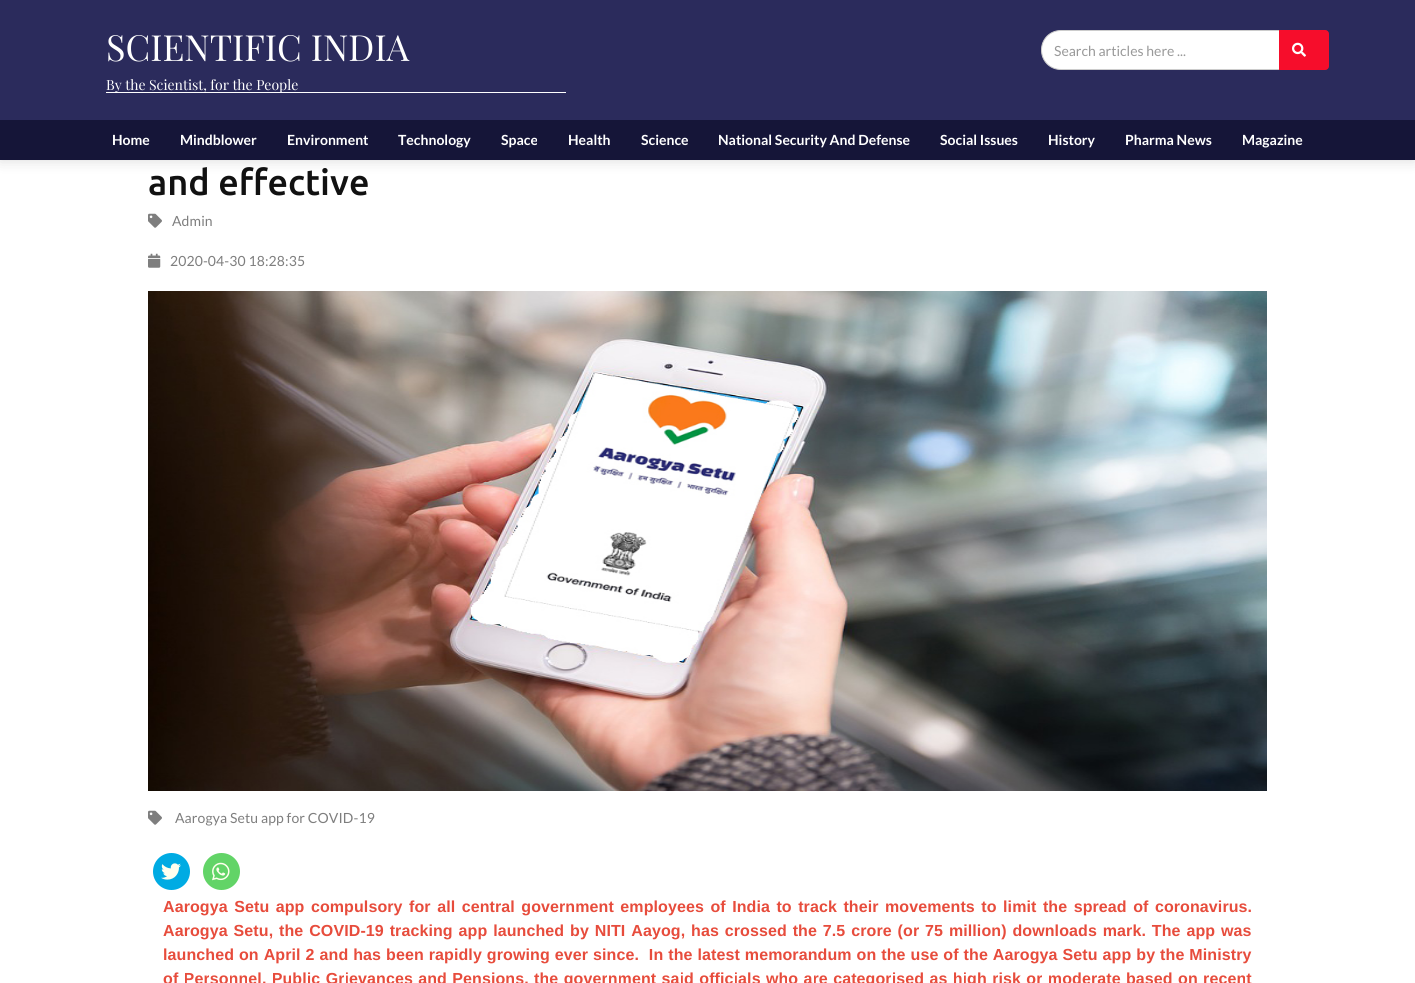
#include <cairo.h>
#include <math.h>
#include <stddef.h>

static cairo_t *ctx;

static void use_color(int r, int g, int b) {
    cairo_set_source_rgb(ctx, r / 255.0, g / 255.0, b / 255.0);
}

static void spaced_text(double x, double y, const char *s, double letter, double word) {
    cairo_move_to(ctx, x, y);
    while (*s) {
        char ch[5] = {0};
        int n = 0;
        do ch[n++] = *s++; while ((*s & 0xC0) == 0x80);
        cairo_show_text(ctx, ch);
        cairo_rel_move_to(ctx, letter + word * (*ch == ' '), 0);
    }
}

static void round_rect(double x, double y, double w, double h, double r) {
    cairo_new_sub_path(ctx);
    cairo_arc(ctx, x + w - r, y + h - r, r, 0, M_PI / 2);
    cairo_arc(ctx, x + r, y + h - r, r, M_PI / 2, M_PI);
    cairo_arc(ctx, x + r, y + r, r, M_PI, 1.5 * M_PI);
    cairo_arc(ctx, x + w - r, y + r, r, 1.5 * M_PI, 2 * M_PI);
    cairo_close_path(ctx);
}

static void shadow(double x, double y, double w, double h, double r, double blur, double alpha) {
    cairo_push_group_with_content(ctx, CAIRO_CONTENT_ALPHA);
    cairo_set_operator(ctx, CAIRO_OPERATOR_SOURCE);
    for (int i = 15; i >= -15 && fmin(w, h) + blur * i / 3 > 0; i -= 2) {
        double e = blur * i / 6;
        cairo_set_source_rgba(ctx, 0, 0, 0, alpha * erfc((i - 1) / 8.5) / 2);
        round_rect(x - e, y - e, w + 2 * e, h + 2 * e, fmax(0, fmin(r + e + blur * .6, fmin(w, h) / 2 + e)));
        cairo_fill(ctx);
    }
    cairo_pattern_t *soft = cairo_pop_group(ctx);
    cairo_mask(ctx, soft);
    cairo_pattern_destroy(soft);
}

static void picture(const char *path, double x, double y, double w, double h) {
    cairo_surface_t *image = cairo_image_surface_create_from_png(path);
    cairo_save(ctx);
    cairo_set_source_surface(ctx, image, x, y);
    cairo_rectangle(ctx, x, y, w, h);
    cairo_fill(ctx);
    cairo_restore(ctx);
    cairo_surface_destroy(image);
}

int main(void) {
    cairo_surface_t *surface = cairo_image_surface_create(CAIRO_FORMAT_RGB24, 1415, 983);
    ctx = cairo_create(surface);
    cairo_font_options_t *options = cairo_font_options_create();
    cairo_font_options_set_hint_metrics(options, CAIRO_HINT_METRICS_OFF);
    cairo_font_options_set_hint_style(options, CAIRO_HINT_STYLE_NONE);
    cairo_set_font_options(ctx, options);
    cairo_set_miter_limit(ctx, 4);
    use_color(255, 255, 255);
    cairo_paint(ctx);
    use_color(0, 0, 0);
    shadow(0, 0, 1415, 160, 0, 7.5, 0.15);
    use_color(21, 21, 56);
    cairo_rectangle(ctx, 0, 120, 1415, 40);
    cairo_fill(ctx);
    use_color(43, 43, 92);
    cairo_rectangle(ctx, 0, 0, 1415, 120);
    cairo_fill(ctx);
    cairo_select_font_face(ctx, "Playfair Display", CAIRO_FONT_SLANT_NORMAL, CAIRO_FONT_WEIGHT_NORMAL);
    cairo_set_font_size(ctx, 36);
    use_color(255, 255, 255);
    cairo_move_to(ctx, 106, 61);
    cairo_show_text(ctx, "SCIENTIFIC INDIA");
    cairo_rectangle(ctx, 106, 92, 460, 1);
    cairo_fill(ctx);
    cairo_set_font_size(ctx, 14);
    cairo_move_to(ctx, 106, 90);
    cairo_show_text(ctx, "By the Scientist, for the People");
    cairo_new_path(ctx);
    cairo_move_to(ctx, 1061, 30.5);
    cairo_line_to(ctx, 1279.5, 30.5);
    cairo_line_to(ctx, 1279.5, 69.5);
    cairo_line_to(ctx, 1061, 69.5);
    cairo_curve_to(ctx, 1050, 69.5, 1041.5, 61, 1041.5, 50);
    cairo_curve_to(ctx, 1041.5, 39, 1050, 30.5, 1061, 30.5);
    cairo_close_path(ctx);
    cairo_fill_preserve(ctx);
    use_color(204, 204, 204);
    cairo_set_line_width(ctx, 1);
    cairo_stroke(ctx);
    cairo_select_font_face(ctx, "Lato", CAIRO_FONT_SLANT_NORMAL, CAIRO_FONT_WEIGHT_NORMAL);
    use_color(153, 153, 153);
    cairo_move_to(ctx, 1054, 56);
    cairo_show_text(ctx, "Search articles here ...");
    use_color(246, 13, 43);
    cairo_new_path(ctx);
    cairo_move_to(ctx, 1279.5, 30.5);
    cairo_line_to(ctx, 1325, 30.5);
    cairo_curve_to(ctx, 1327, 30.5, 1328.5, 32, 1328.5, 34);
    cairo_line_to(ctx, 1328.5, 66);
    cairo_curve_to(ctx, 1328.5, 68, 1327, 69.5, 1325, 69.5);
    cairo_line_to(ctx, 1279.5, 69.5);
    cairo_close_path(ctx);
    cairo_fill_preserve(ctx);
    cairo_stroke(ctx);
    picture("img1.png", 1292, 42, 14, 15);
    cairo_select_font_face(ctx, "Lato", CAIRO_FONT_SLANT_NORMAL, CAIRO_FONT_WEIGHT_BOLD);
    use_color(255, 255, 255);
    cairo_move_to(ctx, 112, 145);
    cairo_show_text(ctx, "Home");
    cairo_move_to(ctx, 180, 145);
    cairo_show_text(ctx, "Mindblower");
    cairo_move_to(ctx, 287, 145);
    cairo_show_text(ctx, "Environment");
    cairo_move_to(ctx, 398, 145);
    cairo_show_text(ctx, "Technology");
    cairo_move_to(ctx, 501, 145);
    cairo_show_text(ctx, "Space");
    cairo_move_to(ctx, 568, 145);
    cairo_show_text(ctx, "Health");
    cairo_move_to(ctx, 641, 145);
    cairo_show_text(ctx, "Science");
    cairo_move_to(ctx, 718, 145);
    cairo_show_text(ctx, "National Security And Defense");
    cairo_move_to(ctx, 940, 145);
    cairo_show_text(ctx, "Social Issues");
    cairo_move_to(ctx, 1048, 145);
    cairo_show_text(ctx, "History");
    cairo_move_to(ctx, 1125, 145);
    cairo_show_text(ctx, "Pharma News");
    cairo_move_to(ctx, 1242, 145);
    cairo_show_text(ctx, "Magazine");
    cairo_select_font_face(ctx, "Ubuntu Medium", CAIRO_FONT_SLANT_NORMAL, CAIRO_FONT_WEIGHT_NORMAL);
    cairo_set_font_size(ctx, 36);
    use_color(17, 17, 17);
    cairo_move_to(ctx, 148, 195);
    cairo_show_text(ctx, "and effective");
    picture("img2.png", 148, 213, 14, 15);
    cairo_select_font_face(ctx, "Lato", CAIRO_FONT_SLANT_NORMAL, CAIRO_FONT_WEIGHT_NORMAL);
    cairo_set_font_size(ctx, 14);
    use_color(126, 126, 126);
    spaced_text(172, 226, "Admin", 0.1, 0);
    picture("img3.png", 148, 253, 13, 15);
    spaced_text(170, 266, "2020-04-30 18:28:35", 0.1, 0);
    picture("img4.png", 148, 291, 1119, 500);
    picture("img2.png", 148, 810, 14, 15);
    spaced_text(175, 823, "Aarogya Setu app for COVID-19", 0.1, 0);
    use_color(0, 171, 227);
    cairo_new_path(ctx);
    cairo_arc(ctx, 171.5, 871.5, 18.5, 0, 2 * M_PI);
    cairo_fill(ctx);
    picture("img5.png", 161, 863, 20, 17);
    use_color(98, 212, 103);
    cairo_arc(ctx, 221.5, 871.5, 18.5, 0, 2 * M_PI);
    cairo_fill(ctx);
    picture("img6.png", 212, 862, 18, 19);
    cairo_select_font_face(ctx, "Liberation Sans", CAIRO_FONT_SLANT_NORMAL, CAIRO_FONT_WEIGHT_BOLD);
    cairo_set_font_size(ctx, 16);
    use_color(231, 76, 60);
    spaced_text(163, 912, "Aarogya Setu app compulsory for all central government employees of India to track their movements to limit the spread of coronavirus.", 0.1, 1.9);
    spaced_text(163, 936, "Aarogya Setu, the COVID-19 tracking app launched by NITI Aayog, has crossed the 7.5 crore (or 75 million) downloads mark. The app was", 0.1, 1.3);
    spaced_text(163, 960, "launched on April 2 and has been rapidly growing ever since.  In the latest memorandum on the use of the Aarogya Setu app by the Ministry", 0.1, 0.4);
    spaced_text(163, 984, "of Personnel, Public Grievances and Pensions, the government said officials who are categorised as high risk or moderate based on recent", 0.1, 0.75);
    cairo_surface_write_to_png(surface, "result.png");
    cairo_font_options_destroy(options);
    cairo_destroy(ctx);
    cairo_surface_destroy(surface);
    return 0;
}
